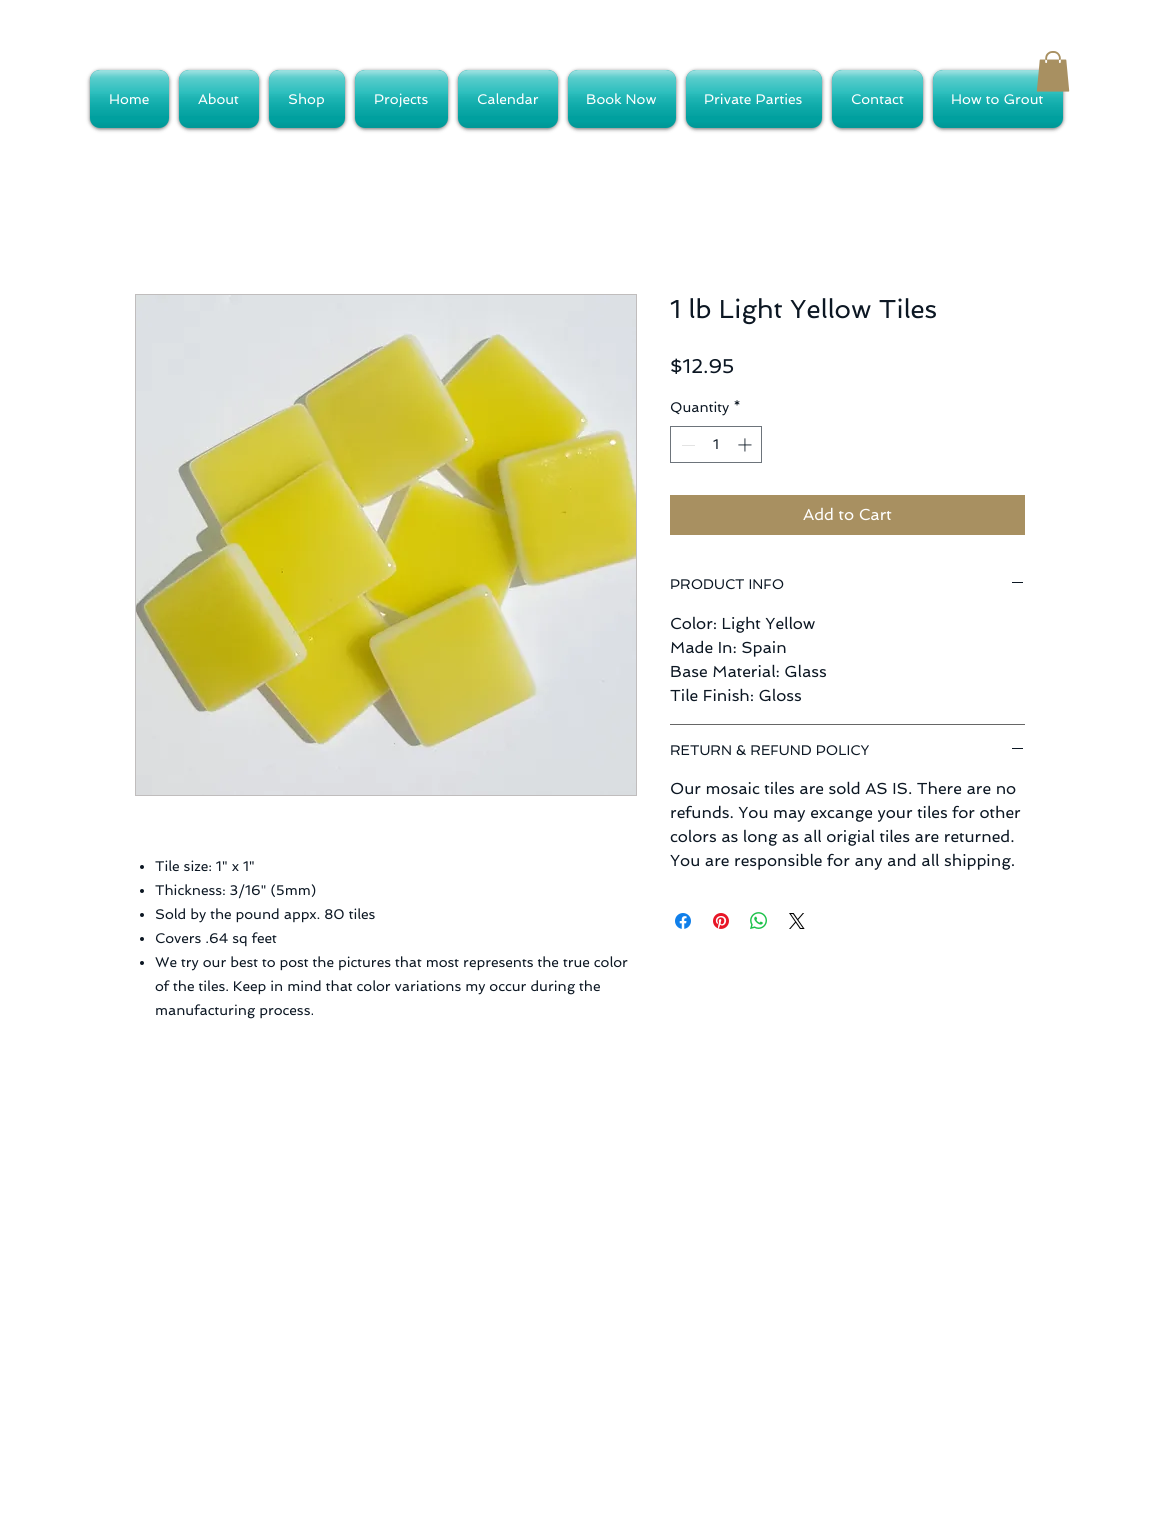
#include <cairo.h>
#include <math.h>
#include <stddef.h>

static cairo_t *ctx;

static void use_color(int r, int g, int b) {
    cairo_set_source_rgb(ctx, r / 255.0, g / 255.0, b / 255.0);
}

static void round_rect(double x, double y, double w, double h, double r) {
    cairo_new_sub_path(ctx);
    cairo_arc(ctx, x + w - r, y + h - r, r, 0, M_PI / 2);
    cairo_arc(ctx, x + r, y + h - r, r, M_PI / 2, M_PI);
    cairo_arc(ctx, x + r, y + r, r, M_PI, 1.5 * M_PI);
    cairo_arc(ctx, x + w - r, y + r, r, 1.5 * M_PI, 2 * M_PI);
    cairo_close_path(ctx);
}

static void shadow(double x, double y, double w, double h, double r, double blur, double alpha) {
    cairo_push_group_with_content(ctx, CAIRO_CONTENT_ALPHA);
    cairo_set_operator(ctx, CAIRO_OPERATOR_SOURCE);
    for (int i = 15; i >= -15 && fmin(w, h) + blur * i / 3 > 0; i -= 2) {
        double e = blur * i / 6;
        cairo_set_source_rgba(ctx, 0, 0, 0, alpha * erfc((i - 1) / 8.5) / 2);
        round_rect(x - e, y - e, w + 2 * e, h + 2 * e, fmax(0, fmin(r + e + blur * .6, fmin(w, h) / 2 + e)));
        cairo_fill(ctx);
    }
    cairo_pattern_t *soft = cairo_pop_group(ctx);
    cairo_mask(ctx, soft);
    cairo_pattern_destroy(soft);
}

static void picture(const char *path, double x, double y, double w, double h) {
    cairo_surface_t *image = cairo_image_surface_create_from_png(path);
    cairo_save(ctx);
    cairo_set_source_surface(ctx, image, x, y);
    cairo_rectangle(ctx, x, y, w, h);
    cairo_fill(ctx);
    cairo_restore(ctx);
    cairo_surface_destroy(image);
}

int main(void) {
    cairo_surface_t *surface = cairo_image_surface_create(CAIRO_FORMAT_RGB24, 1159, 1520);
    ctx = cairo_create(surface);
    cairo_font_options_t *options = cairo_font_options_create();
    cairo_font_options_set_hint_metrics(options, CAIRO_HINT_METRICS_OFF);
    cairo_font_options_set_hint_style(options, CAIRO_HINT_STYLE_NONE);
    cairo_set_font_options(ctx, options);
    cairo_set_miter_limit(ctx, 4);
    use_color(255, 255, 255);
    cairo_paint(ctx);
    use_color(0, 0, 0);
    shadow(933, 71, 130, 58, 10, 2, 0.6);
    use_color(0, 177, 176);
    round_rect(933, 70, 130, 58, 10);
    cairo_fill(ctx);
    picture("img18.png", 933, 70, 130, 46);
    picture("img1.png", 1036, 51, 34, 41);
    use_color(0, 0, 0);
    shadow(90, 71, 79, 58, 10, 2, 0.6);
    use_color(0, 177, 176);
    round_rect(90, 70, 79, 58, 10);
    cairo_fill(ctx);
    picture("img2.png", 90, 70, 79, 46);
    picture("img3.png", 90, 94, 79, 34);
    cairo_select_font_face(ctx, "Spinnaker", CAIRO_FONT_SLANT_NORMAL, CAIRO_FONT_WEIGHT_NORMAL);
    cairo_set_font_size(ctx, 14);
    use_color(255, 255, 255);
    cairo_move_to(ctx, 109, 104);
    cairo_show_text(ctx, "Home");
    use_color(0, 0, 0);
    shadow(179, 71, 80, 58, 10, 2, 0.6);
    use_color(0, 177, 176);
    round_rect(179, 70, 80, 58, 10);
    cairo_fill(ctx);
    picture("img4.png", 179, 70, 80, 46);
    picture("img5.png", 179, 94, 80, 34);
    use_color(255, 255, 255);
    cairo_move_to(ctx, 198, 104);
    cairo_show_text(ctx, "About");
    use_color(0, 0, 0);
    shadow(269, 71, 76, 58, 10, 2, 0.6);
    use_color(0, 177, 176);
    round_rect(269, 70, 76, 58, 10);
    cairo_fill(ctx);
    picture("img6.png", 269, 70, 76, 46);
    picture("img7.png", 269, 94, 76, 34);
    use_color(255, 255, 255);
    cairo_move_to(ctx, 288, 104);
    cairo_show_text(ctx, "Shop");
    use_color(0, 0, 0);
    shadow(355, 71, 93, 58, 10, 2, 0.6);
    use_color(0, 177, 176);
    round_rect(355, 70, 93, 58, 10);
    cairo_fill(ctx);
    picture("img8.png", 355, 70, 93, 46);
    picture("img9.png", 355, 94, 93, 34);
    use_color(255, 255, 255);
    cairo_move_to(ctx, 374, 104);
    cairo_show_text(ctx, "Projects");
    use_color(0, 0, 0);
    shadow(458, 71, 100, 58, 10, 2, 0.6);
    use_color(0, 177, 176);
    round_rect(458, 70, 100, 58, 10);
    cairo_fill(ctx);
    picture("img10.png", 458, 70, 100, 46);
    picture("img11.png", 458, 94, 100, 34);
    use_color(255, 255, 255);
    cairo_move_to(ctx, 477, 104);
    cairo_show_text(ctx, "Calendar");
    use_color(0, 0, 0);
    shadow(568, 71, 108, 58, 10, 2, 0.6);
    use_color(0, 177, 176);
    round_rect(568, 70, 108, 58, 10);
    cairo_fill(ctx);
    picture("img12.png", 568, 70, 108, 46);
    picture("img13.png", 568, 94, 108, 34);
    use_color(255, 255, 255);
    cairo_move_to(ctx, 586, 104);
    cairo_show_text(ctx, "Book Now");
    use_color(0, 0, 0);
    shadow(686, 71, 136, 58, 10, 2, 0.6);
    use_color(0, 177, 176);
    round_rect(686, 70, 136, 58, 10);
    cairo_fill(ctx);
    picture("img14.png", 686, 70, 136, 46);
    picture("img15.png", 686, 94, 136, 34);
    use_color(255, 255, 255);
    cairo_move_to(ctx, 704, 104);
    cairo_show_text(ctx, "Private Parties");
    use_color(0, 0, 0);
    shadow(832, 71, 91, 58, 10, 2, 0.6);
    use_color(0, 177, 176);
    round_rect(832, 70, 91, 58, 10);
    cairo_fill(ctx);
    picture("img16.png", 832, 70, 91, 46);
    picture("img17.png", 832, 94, 91, 34);
    use_color(255, 255, 255);
    cairo_move_to(ctx, 851, 104);
    cairo_show_text(ctx, "Contact");
    picture("img19.png", 933, 94, 130, 34);
    cairo_move_to(ctx, 951, 104);
    cairo_show_text(ctx, "How to Grout");
    cairo_set_font_size(ctx, 26);
    use_color(12, 23, 35);
    cairo_move_to(ctx, 670, 318);
    cairo_show_text(ctx, "1 lb Light Yellow Tiles");
    cairo_set_font_size(ctx, 20);
    cairo_move_to(ctx, 670, 373);
    cairo_show_text(ctx, "$12.95");
    cairo_set_font_size(ctx, 14);
    cairo_move_to(ctx, 670, 412);
    cairo_show_text(ctx, "Quantity *");
    cairo_rectangle(ctx, 670.5, 426.5, 91, 36);
    use_color(109, 116, 123);
    cairo_set_line_width(ctx, 1);
    cairo_stroke(ctx);
    use_color(227, 227, 227);
    cairo_rectangle(ctx, 682, 445, 13, 1);
    cairo_fill(ctx);
    use_color(12, 23, 35);
    cairo_move_to(ctx, 713, 449);
    cairo_show_text(ctx, "1");
    picture("img20.png", 738, 438, 14, 14);
    use_color(168, 144, 97);
    cairo_rectangle(ctx, 670, 495, 355, 40);
    cairo_fill(ctx);
    cairo_set_font_size(ctx, 16);
    use_color(255, 255, 255);
    cairo_move_to(ctx, 803, 520);
    cairo_show_text(ctx, "Add to Cart");
    use_color(102, 102, 102);
    cairo_rectangle(ctx, 670, 724, 355, 1);
    cairo_fill(ctx);
    cairo_set_font_size(ctx, 14);
    use_color(12, 23, 35);
    cairo_move_to(ctx, 670, 589);
    cairo_show_text(ctx, "PRODUCT INFO");
    cairo_rectangle(ctx, 1012, 582, 11, 1);
    cairo_fill(ctx);
    cairo_set_font_size(ctx, 16);
    cairo_move_to(ctx, 670, 629);
    cairo_show_text(ctx, "Color: Light Yellow");
    cairo_move_to(ctx, 670, 653);
    cairo_show_text(ctx, "Made In: Spain");
    cairo_move_to(ctx, 670, 677);
    cairo_show_text(ctx, "Base Material: Glass");
    cairo_move_to(ctx, 670, 701);
    cairo_show_text(ctx, "Tile Finish: Gloss");
    cairo_set_font_size(ctx, 14);
    cairo_move_to(ctx, 670, 755);
    cairo_show_text(ctx, "RETURN & REFUND POLICY");
    cairo_rectangle(ctx, 1012, 748, 11, 1);
    cairo_fill(ctx);
    cairo_set_font_size(ctx, 16);
    cairo_move_to(ctx, 670, 794);
    cairo_show_text(ctx, "Our mosaic tiles are sold AS IS. There are no");
    cairo_move_to(ctx, 670, 818);
    cairo_show_text(ctx, "refunds. You may excange your tiles for other");
    cairo_move_to(ctx, 670, 842);
    cairo_show_text(ctx, "colors as long as all origial tiles are returned.");
    cairo_move_to(ctx, 670, 866);
    cairo_show_text(ctx, "You are responsible for any and all shipping.");
    picture("img21.png", 675, 913, 16, 16);
    picture("img22.png", 713, 913, 16, 16);
    picture("img23.png", 750, 912, 17, 17);
    picture("img24.png", 789, 913, 16, 16);
    cairo_rectangle(ctx, 135.5, 294.5, 501, 501);
    use_color(192, 189, 189);
    cairo_stroke(ctx);
    picture("img25.png", 136, 295, 500, 500);
    use_color(12, 23, 35);
    cairo_arc(ctx, 142, 867, 2, 0, 2 * M_PI);
    cairo_fill(ctx);
    cairo_set_font_size(ctx, 14);
    cairo_move_to(ctx, 155, 871);
    cairo_show_text(ctx, "Tile size: 1\" x 1\"");
    cairo_new_path(ctx);
    cairo_arc(ctx, 142, 891, 2, 0, 2 * M_PI);
    cairo_fill(ctx);
    cairo_move_to(ctx, 155, 895);
    cairo_show_text(ctx, "Thickness: 3/16\" (5mm)");
    cairo_new_path(ctx);
    cairo_arc(ctx, 142, 915, 2, 0, 2 * M_PI);
    cairo_fill(ctx);
    cairo_move_to(ctx, 155, 919);
    cairo_show_text(ctx, "Sold by the pound appx. 80 tiles");
    cairo_new_path(ctx);
    cairo_arc(ctx, 142, 939, 2, 0, 2 * M_PI);
    cairo_fill(ctx);
    cairo_move_to(ctx, 155, 943);
    cairo_show_text(ctx, "Covers .64 sq feet");
    cairo_new_path(ctx);
    cairo_arc(ctx, 142, 963, 2, 0, 2 * M_PI);
    cairo_fill(ctx);
    cairo_move_to(ctx, 155, 967);
    cairo_show_text(ctx, "We try our best to post the pictures that most represents the true color");
    cairo_move_to(ctx, 155, 991);
    cairo_show_text(ctx, "of the tiles. Keep in mind that color variations my occur during the");
    cairo_move_to(ctx, 155, 1015);
    cairo_show_text(ctx, "manufacturing process.");
    cairo_surface_write_to_png(surface, "result.png");
    cairo_font_options_destroy(options);
    cairo_destroy(ctx);
    cairo_surface_destroy(surface);
    return 0;
}
